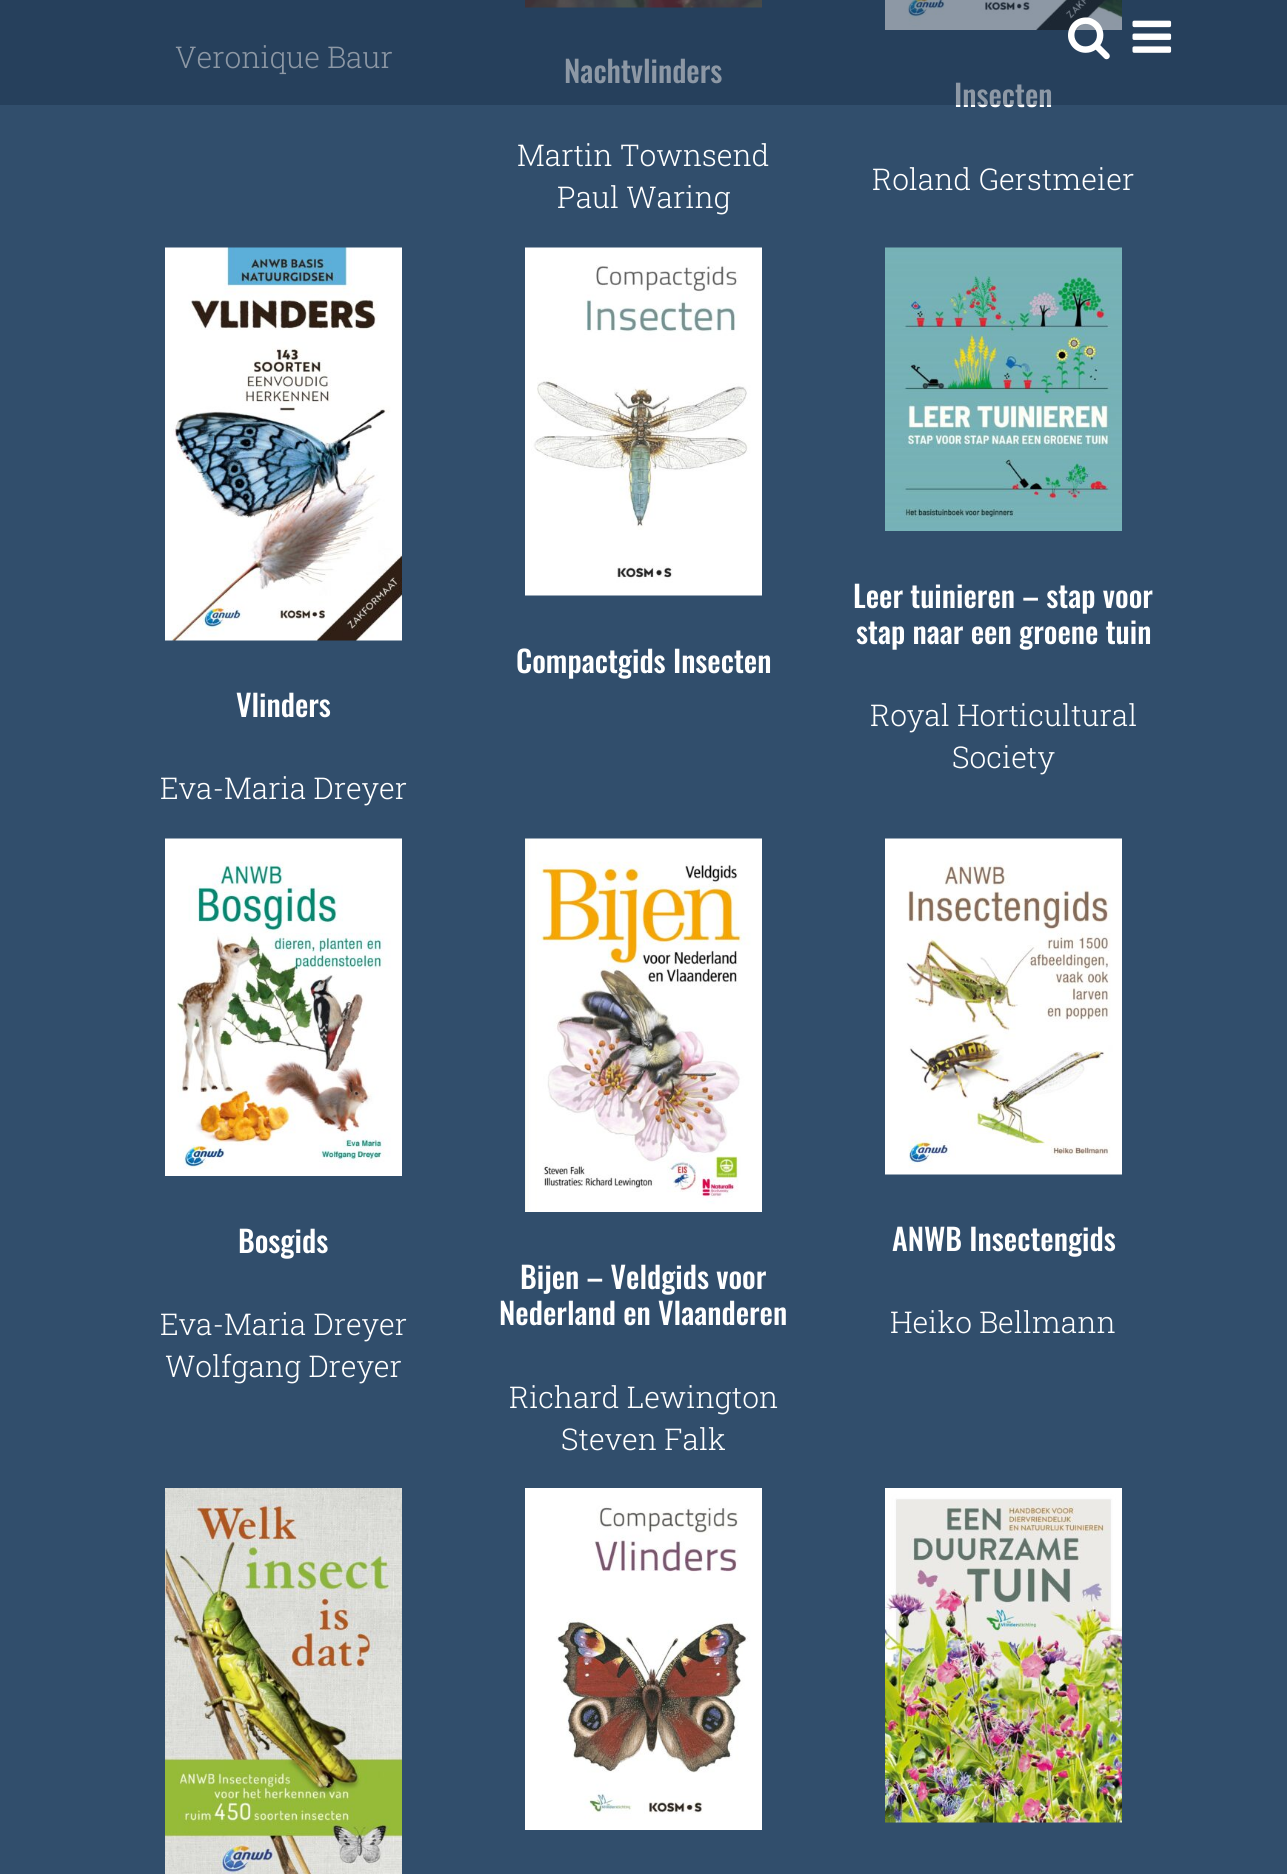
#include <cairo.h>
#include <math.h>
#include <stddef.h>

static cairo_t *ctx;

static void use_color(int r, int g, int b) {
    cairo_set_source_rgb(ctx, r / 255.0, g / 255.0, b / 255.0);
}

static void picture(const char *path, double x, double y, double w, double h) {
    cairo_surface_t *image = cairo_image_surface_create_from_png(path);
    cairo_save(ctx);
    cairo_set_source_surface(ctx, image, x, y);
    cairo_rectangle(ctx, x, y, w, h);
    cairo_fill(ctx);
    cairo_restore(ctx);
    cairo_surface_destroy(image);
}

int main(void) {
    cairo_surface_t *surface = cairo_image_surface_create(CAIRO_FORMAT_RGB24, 1287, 1874);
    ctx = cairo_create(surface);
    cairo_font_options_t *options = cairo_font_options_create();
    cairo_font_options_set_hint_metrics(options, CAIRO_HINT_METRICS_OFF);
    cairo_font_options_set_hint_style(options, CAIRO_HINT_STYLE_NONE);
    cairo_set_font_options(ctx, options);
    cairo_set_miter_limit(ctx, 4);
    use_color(49, 78, 108);
    cairo_paint(ctx);
    cairo_select_font_face(ctx, "Roboto Slab Light", CAIRO_FONT_SLANT_NORMAL, CAIRO_FONT_WEIGHT_NORMAL);
    cairo_set_font_size(ctx, 30);
    use_color(255, 255, 255);
    cairo_move_to(ctx, 175, 68);
    cairo_show_text(ctx, "Veronique Baur");
    picture("img3.png", 525, 0, 237, 8);
    cairo_select_font_face(ctx, "Oswald Medium", CAIRO_FONT_SLANT_NORMAL, CAIRO_FONT_WEIGHT_NORMAL);
    cairo_move_to(ctx, 564, 83);
    cairo_show_text(ctx, "Nachtvlinders");
    picture("img4.png", 885, 0, 237, 30);
    cairo_move_to(ctx, 954, 107);
    cairo_show_text(ctx, "Insecten");
    cairo_set_source_rgba(ctx, 0.114, 0.2, 0.302, 0.5);
    cairo_rectangle(ctx, 0, 0, 1287, 105);
    cairo_fill(ctx);
    picture("img1.png", 1068, 17, 42, 43);
    picture("img2.png", 1132, 20, 40, 33);
    cairo_select_font_face(ctx, "Roboto Slab Light", CAIRO_FONT_SLANT_NORMAL, CAIRO_FONT_WEIGHT_NORMAL);
    use_color(255, 255, 255);
    cairo_move_to(ctx, 517, 166);
    cairo_show_text(ctx, "Martin Townsend");
    cairo_move_to(ctx, 557, 208);
    cairo_show_text(ctx, "Paul Waring");
    cairo_move_to(ctx, 872, 190);
    cairo_show_text(ctx, "Roland Gerstmeier");
    picture("img5.png", 525, 247, 237, 349);
    cairo_select_font_face(ctx, "Oswald Medium", CAIRO_FONT_SLANT_NORMAL, CAIRO_FONT_WEIGHT_NORMAL);
    cairo_move_to(ctx, 516, 673);
    cairo_show_text(ctx, "Compactgids Insecten");
    picture("img6.png", 885, 247, 237, 284);
    cairo_move_to(ctx, 853, 608);
    cairo_show_text(ctx, "Leer tuinieren – stap voor");
    cairo_move_to(ctx, 856, 644);
    cairo_show_text(ctx, "stap naar een groene tuin");
    cairo_select_font_face(ctx, "Roboto Slab Light", CAIRO_FONT_SLANT_NORMAL, CAIRO_FONT_WEIGHT_NORMAL);
    cairo_move_to(ctx, 870, 726);
    cairo_show_text(ctx, "Royal Horticultural");
    cairo_move_to(ctx, 952, 768);
    cairo_show_text(ctx, "Society");
    picture("img7.png", 165, 247, 237, 394);
    cairo_select_font_face(ctx, "Oswald Medium", CAIRO_FONT_SLANT_NORMAL, CAIRO_FONT_WEIGHT_NORMAL);
    cairo_move_to(ctx, 236, 717);
    cairo_show_text(ctx, "Vlinders");
    cairo_select_font_face(ctx, "Roboto Slab Light", CAIRO_FONT_SLANT_NORMAL, CAIRO_FONT_WEIGHT_NORMAL);
    cairo_move_to(ctx, 160, 799);
    cairo_show_text(ctx, "Eva-Maria Dreyer");
    picture("img8.png", 165, 838, 237, 338);
    cairo_select_font_face(ctx, "Oswald Medium", CAIRO_FONT_SLANT_NORMAL, CAIRO_FONT_WEIGHT_NORMAL);
    cairo_move_to(ctx, 238, 1253);
    cairo_show_text(ctx, "Bosgids");
    cairo_select_font_face(ctx, "Roboto Slab Light", CAIRO_FONT_SLANT_NORMAL, CAIRO_FONT_WEIGHT_NORMAL);
    cairo_move_to(ctx, 160, 1335);
    cairo_show_text(ctx, "Eva-Maria Dreyer");
    cairo_move_to(ctx, 165, 1377);
    cairo_show_text(ctx, "Wolfgang Dreyer");
    picture("img9.png", 525, 838, 237, 374);
    cairo_select_font_face(ctx, "Oswald Medium", CAIRO_FONT_SLANT_NORMAL, CAIRO_FONT_WEIGHT_NORMAL);
    cairo_move_to(ctx, 520, 1289);
    cairo_show_text(ctx, "Bijen – Veldgids voor");
    cairo_move_to(ctx, 499, 1325);
    cairo_show_text(ctx, "Nederland en Vlaanderen");
    cairo_select_font_face(ctx, "Roboto Slab Light", CAIRO_FONT_SLANT_NORMAL, CAIRO_FONT_WEIGHT_NORMAL);
    cairo_move_to(ctx, 509, 1408);
    cairo_show_text(ctx, "Richard Lewington");
    cairo_move_to(ctx, 561, 1450);
    cairo_show_text(ctx, "Steven Falk");
    picture("img10.png", 885, 838, 237, 337);
    cairo_select_font_face(ctx, "Oswald Medium", CAIRO_FONT_SLANT_NORMAL, CAIRO_FONT_WEIGHT_NORMAL);
    cairo_move_to(ctx, 892, 1251);
    cairo_show_text(ctx, "ANWB Insectengids");
    cairo_select_font_face(ctx, "Roboto Slab Light", CAIRO_FONT_SLANT_NORMAL, CAIRO_FONT_WEIGHT_NORMAL);
    cairo_move_to(ctx, 890, 1333);
    cairo_show_text(ctx, "Heiko Bellmann");
    picture("img11.png", 165, 1488, 237, 386);
    picture("img12.png", 525, 1488, 237, 342);
    picture("img13.png", 885, 1488, 237, 335);
    cairo_surface_write_to_png(surface, "result.png");
    cairo_font_options_destroy(options);
    cairo_destroy(ctx);
    cairo_surface_destroy(surface);
    return 0;
}
